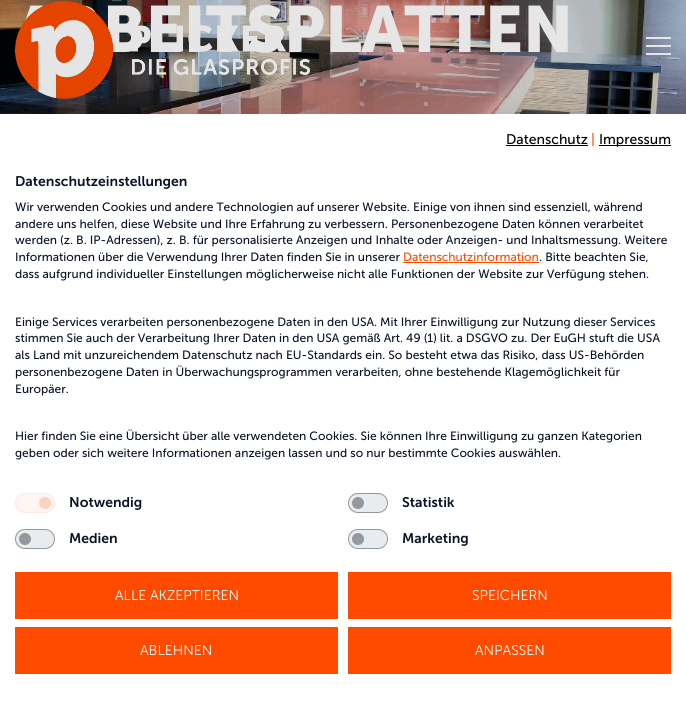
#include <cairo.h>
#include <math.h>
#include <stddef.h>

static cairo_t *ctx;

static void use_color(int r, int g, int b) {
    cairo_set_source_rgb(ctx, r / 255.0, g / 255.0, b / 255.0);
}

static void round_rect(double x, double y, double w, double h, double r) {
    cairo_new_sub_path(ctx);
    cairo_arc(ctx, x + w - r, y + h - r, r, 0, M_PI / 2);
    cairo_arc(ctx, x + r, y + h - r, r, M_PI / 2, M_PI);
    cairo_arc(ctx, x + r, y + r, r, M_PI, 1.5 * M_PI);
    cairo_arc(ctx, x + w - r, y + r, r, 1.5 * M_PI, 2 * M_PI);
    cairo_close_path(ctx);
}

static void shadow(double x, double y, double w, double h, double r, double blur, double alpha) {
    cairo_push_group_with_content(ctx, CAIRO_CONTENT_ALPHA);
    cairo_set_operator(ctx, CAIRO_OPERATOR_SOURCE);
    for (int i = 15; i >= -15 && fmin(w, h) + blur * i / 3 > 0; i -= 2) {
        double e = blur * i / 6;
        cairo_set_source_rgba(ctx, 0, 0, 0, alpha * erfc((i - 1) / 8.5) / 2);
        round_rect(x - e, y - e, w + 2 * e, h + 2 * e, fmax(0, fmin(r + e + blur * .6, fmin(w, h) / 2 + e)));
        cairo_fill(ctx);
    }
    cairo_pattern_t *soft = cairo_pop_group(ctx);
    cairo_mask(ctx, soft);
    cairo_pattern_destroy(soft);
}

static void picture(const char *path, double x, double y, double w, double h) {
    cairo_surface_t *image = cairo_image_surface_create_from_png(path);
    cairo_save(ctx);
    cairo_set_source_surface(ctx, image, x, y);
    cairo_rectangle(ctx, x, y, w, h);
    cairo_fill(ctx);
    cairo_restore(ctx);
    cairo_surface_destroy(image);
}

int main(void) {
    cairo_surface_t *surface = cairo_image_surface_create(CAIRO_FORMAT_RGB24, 686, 701);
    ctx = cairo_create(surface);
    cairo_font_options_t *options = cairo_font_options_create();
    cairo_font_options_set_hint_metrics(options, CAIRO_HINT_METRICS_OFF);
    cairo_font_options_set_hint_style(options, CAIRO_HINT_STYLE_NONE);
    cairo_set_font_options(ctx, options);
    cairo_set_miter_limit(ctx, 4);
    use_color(255, 255, 255);
    cairo_paint(ctx);
    picture("img2.png", 0, 0, 686, 114);
    cairo_select_font_face(ctx, "Museo Sans", CAIRO_FONT_SLANT_NORMAL, CAIRO_FONT_WEIGHT_BOLD);
    cairo_set_font_size(ctx, 65);
    use_color(230, 230, 230);
    cairo_move_to(ctx, 15, 52);
    cairo_show_text(ctx, "ARBEITSPLATTEN");
    picture("img1.png", 15, 1, 295, 98);
    cairo_rectangle(ctx, 646, 37, 25, 2);
    cairo_fill(ctx);
    cairo_rectangle(ctx, 646, 45, 25, 2);
    cairo_fill(ctx);
    cairo_rectangle(ctx, 646, 53, 25, 2);
    cairo_fill(ctx);
    use_color(0, 0, 0);
    shadow(0, 114, 686, 587, 0, 12, 0.1);
    use_color(255, 255, 255);
    cairo_rectangle(ctx, 0, 114, 686, 587);
    cairo_fill(ctx);
    cairo_select_font_face(ctx, "Museo Sans", CAIRO_FONT_SLANT_NORMAL, CAIRO_FONT_WEIGHT_NORMAL);
    cairo_set_font_size(ctx, 14);
    use_color(0, 0, 0);
    cairo_move_to(ctx, 506, 144);
    cairo_show_text(ctx, "Datenschutz");
    cairo_rectangle(ctx, 506, 145, 82, 1);
    cairo_fill(ctx);
    use_color(255, 75, 0);
    cairo_move_to(ctx, 591, 144);
    cairo_show_text(ctx, "|");
    use_color(0, 0, 0);
    cairo_rectangle(ctx, 599, 145, 72, 1);
    cairo_fill(ctx);
    cairo_move_to(ctx, 599, 144);
    cairo_show_text(ctx, "Impressum");
    cairo_select_font_face(ctx, "Museo Sans SemiBold", CAIRO_FONT_SLANT_NORMAL, CAIRO_FONT_WEIGHT_NORMAL);
    use_color(10, 20, 37);
    cairo_move_to(ctx, 15, 186);
    cairo_show_text(ctx, "Datenschutzeinstellungen");
    cairo_select_font_face(ctx, "Museo Sans", CAIRO_FONT_SLANT_NORMAL, CAIRO_FONT_WEIGHT_NORMAL);
    cairo_set_font_size(ctx, 12);
    cairo_move_to(ctx, 15, 211);
    cairo_show_text(ctx, "Wir verwenden Cookies und andere Technologien auf unserer Website. Einige von ihnen sind essenziell, während");
    cairo_move_to(ctx, 15, 228);
    cairo_show_text(ctx, "andere uns helfen, diese Website und Ihre Erfahrung zu verbessern. Personenbezogene Daten können verarbeitet");
    cairo_move_to(ctx, 15, 244);
    cairo_show_text(ctx, "werden (z. B. IP-Adressen), z. B. für personalisierte Anzeigen und Inhalte oder Anzeigen- und Inhaltsmessung. Weitere");
    cairo_move_to(ctx, 15, 261);
    cairo_show_text(ctx, "Informationen über die Verwendung Ihrer Daten finden Sie in unserer");
    use_color(255, 75, 0);
    cairo_move_to(ctx, 403, 261);
    cairo_show_text(ctx, "Datenschutzinformation");
    cairo_rectangle(ctx, 403, 262, 136, 1);
    cairo_fill(ctx);
    use_color(10, 20, 37);
    cairo_move_to(ctx, 539, 261);
    cairo_show_text(ctx, ". Bitte beachten Sie,");
    cairo_move_to(ctx, 15, 278);
    cairo_show_text(ctx, "dass aufgrund individueller Einstellungen möglicherweise nicht alle Funktionen der Website zur Verfügung stehen.");
    cairo_move_to(ctx, 15, 326);
    cairo_show_text(ctx, "Einige Services verarbeiten personenbezogene Daten in den USA. Mit Ihrer Einwilligung zur Nutzung dieser Services");
    cairo_move_to(ctx, 15, 342);
    cairo_show_text(ctx, "stimmen Sie auch der Verarbeitung Ihrer Daten in den USA gemäß Art. 49 (1) lit. a DSGVO zu. Der EuGH stuft die USA");
    cairo_move_to(ctx, 15, 359);
    cairo_show_text(ctx, "als Land mit unzureichendem Datenschutz nach EU-Standards ein. So besteht etwa das Risiko, dass US-Behörden");
    cairo_move_to(ctx, 15, 376);
    cairo_show_text(ctx, "personenbezogene Daten in Überwachungsprogrammen verarbeiten, ohne bestehende Klagemöglichkeit für");
    cairo_move_to(ctx, 15, 393);
    cairo_show_text(ctx, "Europäer.");
    cairo_move_to(ctx, 15, 440);
    cairo_show_text(ctx, "Hier finden Sie eine Übersicht über alle verwendeten Cookies. Sie können Ihre Einwilligung zu ganzen Kategorien");
    cairo_move_to(ctx, 15, 457);
    cairo_show_text(ctx, "geben oder sich weitere Informationen anzeigen lassen und so nur bestimmte Cookies auswählen.");
    use_color(255, 246, 242);
    round_rect(15, 493, 40, 20, 10);
    cairo_fill(ctx);
    use_color(255, 210, 191);
    cairo_arc(ctx, 45, 503, 6, 0, 2 * M_PI);
    cairo_fill(ctx);
    round_rect(15.5, 493.5, 39, 19, 9.5);
    use_color(255, 233, 223);
    cairo_set_line_width(ctx, 1);
    cairo_stroke(ctx);
    cairo_select_font_face(ctx, "Museo Sans SemiBold", CAIRO_FONT_SLANT_NORMAL, CAIRO_FONT_WEIGHT_NORMAL);
    cairo_set_font_size(ctx, 14);
    use_color(10, 20, 37);
    cairo_move_to(ctx, 69, 507);
    cairo_show_text(ctx, "Notwendig");
    use_color(233, 236, 239);
    round_rect(348, 493, 40, 20, 10);
    cairo_fill(ctx);
    use_color(146, 153, 159);
    cairo_arc(ctx, 358, 503, 6, 0, 2 * M_PI);
    cairo_fill(ctx);
    round_rect(348.5, 493.5, 39, 19, 9.5);
    cairo_set_source_rgba(ctx, 0.424, 0.459, 0.49, 0.7);
    cairo_stroke(ctx);
    use_color(10, 20, 37);
    cairo_move_to(ctx, 402, 507);
    cairo_show_text(ctx, "Statistik");
    use_color(233, 236, 239);
    round_rect(15, 529, 40, 20, 10);
    cairo_fill(ctx);
    use_color(146, 153, 159);
    cairo_arc(ctx, 25, 539, 6, 0, 2 * M_PI);
    cairo_fill(ctx);
    round_rect(15.5, 529.5, 39, 19, 9.5);
    cairo_set_source_rgba(ctx, 0.424, 0.459, 0.49, 0.7);
    cairo_stroke(ctx);
    use_color(10, 20, 37);
    cairo_move_to(ctx, 69, 543);
    cairo_show_text(ctx, "Medien");
    use_color(233, 236, 239);
    round_rect(348, 529, 40, 20, 10);
    cairo_fill(ctx);
    use_color(146, 153, 159);
    cairo_arc(ctx, 358, 539, 6, 0, 2 * M_PI);
    cairo_fill(ctx);
    round_rect(348.5, 529.5, 39, 19, 9.5);
    cairo_set_source_rgba(ctx, 0.424, 0.459, 0.49, 0.7);
    cairo_stroke(ctx);
    use_color(10, 20, 37);
    cairo_move_to(ctx, 402, 543);
    cairo_show_text(ctx, "Marketing");
    use_color(255, 75, 0);
    cairo_rectangle(ctx, 15, 572, 323, 47);
    cairo_fill(ctx);
    cairo_select_font_face(ctx, "Museo Sans Light", CAIRO_FONT_SLANT_NORMAL, CAIRO_FONT_WEIGHT_NORMAL);
    use_color(255, 255, 255);
    cairo_move_to(ctx, 115, 600);
    cairo_show_text(ctx, "ALLE AKZEPTIEREN");
    use_color(255, 75, 0);
    cairo_rectangle(ctx, 348, 572, 323, 47);
    cairo_fill(ctx);
    use_color(255, 255, 255);
    cairo_move_to(ctx, 472, 600);
    cairo_show_text(ctx, "SPEICHERN");
    use_color(255, 75, 0);
    cairo_rectangle(ctx, 15, 627, 323, 47);
    cairo_fill(ctx);
    use_color(255, 255, 255);
    cairo_move_to(ctx, 140, 655);
    cairo_show_text(ctx, "ABLEHNEN");
    use_color(255, 75, 0);
    cairo_rectangle(ctx, 348, 627, 323, 47);
    cairo_fill(ctx);
    use_color(255, 255, 255);
    cairo_move_to(ctx, 475, 655);
    cairo_show_text(ctx, "ANPASSEN");
    cairo_surface_write_to_png(surface, "result.png");
    cairo_font_options_destroy(options);
    cairo_destroy(ctx);
    cairo_surface_destroy(surface);
    return 0;
}
